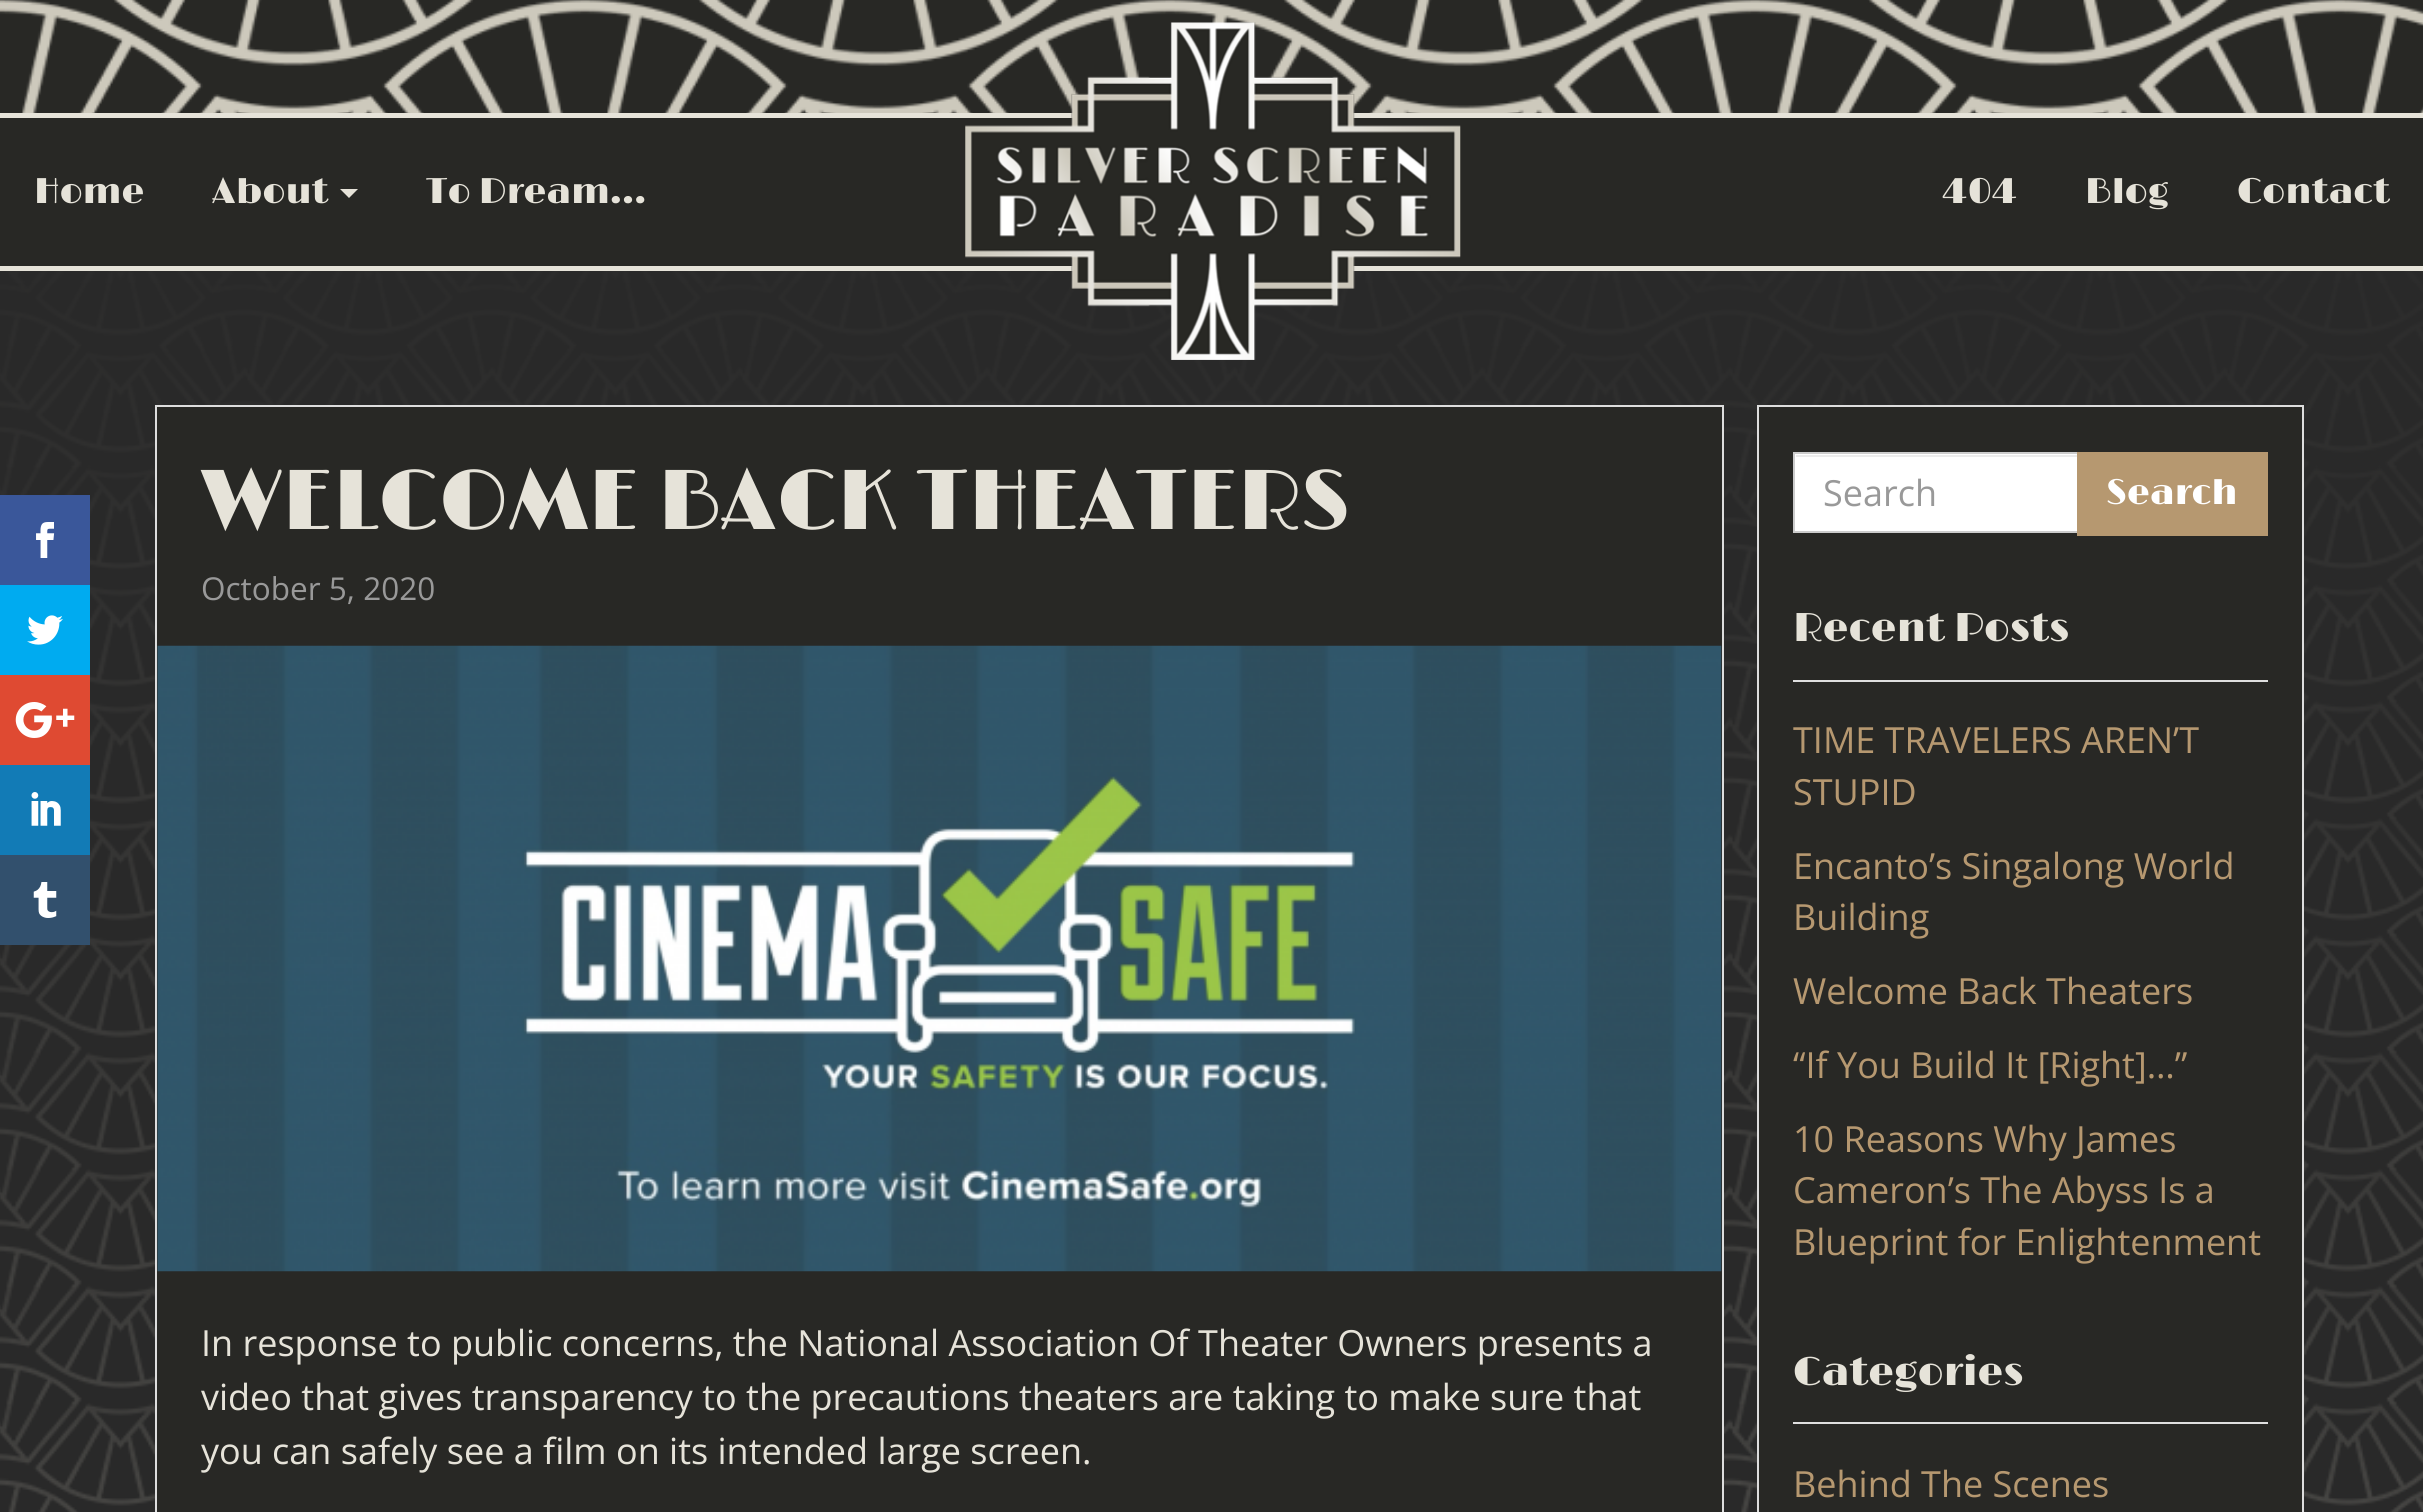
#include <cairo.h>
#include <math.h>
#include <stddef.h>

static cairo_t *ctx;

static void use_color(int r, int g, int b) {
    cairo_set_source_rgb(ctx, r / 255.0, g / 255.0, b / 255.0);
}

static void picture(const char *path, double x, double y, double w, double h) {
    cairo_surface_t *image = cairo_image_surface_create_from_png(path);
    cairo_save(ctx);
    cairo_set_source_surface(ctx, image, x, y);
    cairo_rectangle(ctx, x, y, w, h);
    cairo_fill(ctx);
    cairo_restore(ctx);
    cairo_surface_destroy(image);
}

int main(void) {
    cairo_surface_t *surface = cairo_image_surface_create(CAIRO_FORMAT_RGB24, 2423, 1512);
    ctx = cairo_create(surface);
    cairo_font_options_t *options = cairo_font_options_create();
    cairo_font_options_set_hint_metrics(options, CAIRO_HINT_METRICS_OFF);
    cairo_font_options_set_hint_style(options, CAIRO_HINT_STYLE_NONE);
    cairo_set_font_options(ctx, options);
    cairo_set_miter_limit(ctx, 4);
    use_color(40, 40, 37);
    cairo_paint(ctx);
    picture("img1.png", 0, 0, 2423, 113);
    use_color(230, 227, 217);
    cairo_rectangle(ctx, 0, 113, 2423, 5);
    cairo_fill(ctx);
    cairo_rectangle(ctx, 0, 266, 2423, 5);
    cairo_fill(ctx);
    picture("img8.png", 0, 271, 2423, 1241);
    picture("img9.png", 0, 271, 2423, 1241);
    picture("img2.png", 965, 22, 496, 338);
    cairo_select_font_face(ctx, "Limelight Light", CAIRO_FONT_SLANT_NORMAL, CAIRO_FONT_WEIGHT_NORMAL);
    cairo_set_font_size(ctx, 36);
    cairo_move_to(ctx, 34, 203);
    cairo_show_text(ctx, "Home");
    cairo_move_to(ctx, 212, 203);
    cairo_show_text(ctx, "About");
    cairo_new_path(ctx);
    cairo_move_to(ctx, 340, 189);
    cairo_line_to(ctx, 358, 189);
    cairo_line_to(ctx, 349, 198);
    cairo_close_path(ctx);
    cairo_fill(ctx);
    cairo_move_to(ctx, 426, 203);
    cairo_show_text(ctx, "To Dream…");
    cairo_move_to(ctx, 1942, 203);
    cairo_show_text(ctx, "404");
    cairo_move_to(ctx, 2085, 203);
    cairo_show_text(ctx, "Blog");
    cairo_move_to(ctx, 2237, 203);
    cairo_show_text(ctx, "Contact");
    use_color(58, 87, 154);
    cairo_rectangle(ctx, 0, 495, 90, 90);
    cairo_fill(ctx);
    picture("img3.png", 36, 522, 19, 36);
    use_color(0, 171, 240);
    cairo_rectangle(ctx, 0, 585, 90, 90);
    cairo_fill(ctx);
    picture("img4.png", 27, 615, 36, 30);
    use_color(223, 74, 50);
    cairo_rectangle(ctx, 0, 675, 90, 90);
    cairo_fill(ctx);
    picture("img5.png", 15, 702, 60, 36);
    use_color(18, 123, 182);
    cairo_rectangle(ctx, 0, 765, 90, 90);
    cairo_fill(ctx);
    picture("img6.png", 31, 792, 30, 34);
    use_color(50, 80, 109);
    cairo_rectangle(ctx, 0, 855, 90, 90);
    cairo_fill(ctx);
    picture("img7.png", 33, 882, 24, 36);
    use_color(40, 40, 37);
    cairo_rectangle(ctx, 156, 406, 1567, 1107);
    cairo_fill_preserve(ctx);
    use_color(221, 221, 221);
    cairo_stroke(ctx);
    cairo_set_font_size(ctx, 85.5);
    use_color(230, 227, 217);
    cairo_move_to(ctx, 201, 529);
    cairo_show_text(ctx, "WELCOME BACK THEATERS");
    cairo_select_font_face(ctx, "Open Sans", CAIRO_FONT_SLANT_NORMAL, CAIRO_FONT_WEIGHT_NORMAL);
    cairo_set_font_size(ctx, 31.5);
    use_color(153, 153, 153);
    cairo_move_to(ctx, 201, 600);
    cairo_show_text(ctx, "October 5, 2020");
    picture("img10.png", 157, 645, 1565, 627);
    cairo_set_font_size(ctx, 36);
    use_color(230, 227, 217);
    cairo_move_to(ctx, 201, 1356);
    cairo_show_text(ctx, "In response to public concerns, the National Association Of Theater Owners presents a");
    cairo_move_to(ctx, 201, 1410);
    cairo_show_text(ctx, "video that gives transparency to the precautions theaters are taking to make sure that");
    cairo_move_to(ctx, 201, 1464);
    cairo_show_text(ctx, "you can safely see a film on its intended large screen.");
    use_color(40, 40, 37);
    cairo_rectangle(ctx, 1758, 406, 545, 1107);
    cairo_fill_preserve(ctx);
    use_color(221, 221, 221);
    cairo_stroke(ctx);
    use_color(255, 255, 255);
    cairo_rectangle(ctx, 1795, 454, 282, 77);
    cairo_fill(ctx);
    use_color(236, 236, 236);
    cairo_rectangle(ctx, 1796, 455, 281, 2);
    cairo_fill(ctx);
    cairo_rectangle(ctx, 1794, 453, 284, 79);
    use_color(204, 204, 204);
    cairo_stroke(ctx);
    use_color(153, 153, 153);
    cairo_move_to(ctx, 1823, 506);
    cairo_show_text(ctx, "Search");
    use_color(182, 152, 112);
    cairo_rectangle(ctx, 2077, 452, 191, 84);
    cairo_fill(ctx);
    cairo_select_font_face(ctx, "Limelight Light", CAIRO_FONT_SLANT_NORMAL, CAIRO_FONT_WEIGHT_NORMAL);
    use_color(255, 255, 255);
    cairo_move_to(ctx, 2106, 504);
    cairo_show_text(ctx, "Search");
    use_color(224, 224, 224);
    cairo_rectangle(ctx, 1793, 680, 475, 2);
    cairo_fill(ctx);
    cairo_set_font_size(ctx, 40.5);
    use_color(230, 227, 217);
    cairo_move_to(ctx, 1793, 641);
    cairo_show_text(ctx, "Recent Posts");
    cairo_select_font_face(ctx, "Open Sans", CAIRO_FONT_SLANT_NORMAL, CAIRO_FONT_WEIGHT_NORMAL);
    cairo_set_font_size(ctx, 36);
    use_color(182, 152, 112);
    cairo_move_to(ctx, 1793, 753);
    cairo_show_text(ctx, "TIME TRAVELERS AREN’T");
    cairo_move_to(ctx, 1793, 805);
    cairo_show_text(ctx, "STUPID");
    cairo_move_to(ctx, 1793, 879);
    cairo_show_text(ctx, "Encanto’s Singalong World");
    cairo_move_to(ctx, 1793, 930);
    cairo_show_text(ctx, "Building");
    cairo_move_to(ctx, 1793, 1004);
    cairo_show_text(ctx, "Welcome Back Theaters");
    cairo_move_to(ctx, 1793, 1078);
    cairo_show_text(ctx, "“If You Build It [Right]…”");
    cairo_move_to(ctx, 1793, 1152);
    cairo_show_text(ctx, "10 Reasons Why James");
    cairo_move_to(ctx, 1793, 1203);
    cairo_show_text(ctx, "Cameron’s The Abyss Is a");
    cairo_move_to(ctx, 1793, 1255);
    cairo_show_text(ctx, "Blueprint for Enlightenment");
    use_color(224, 224, 224);
    cairo_rectangle(ctx, 1793, 1422, 475, 2);
    cairo_fill(ctx);
    cairo_select_font_face(ctx, "Limelight Light", CAIRO_FONT_SLANT_NORMAL, CAIRO_FONT_WEIGHT_NORMAL);
    cairo_set_font_size(ctx, 40.5);
    use_color(230, 227, 217);
    cairo_move_to(ctx, 1793, 1385);
    cairo_show_text(ctx, "Categories");
    cairo_select_font_face(ctx, "Open Sans", CAIRO_FONT_SLANT_NORMAL, CAIRO_FONT_WEIGHT_NORMAL);
    cairo_set_font_size(ctx, 36);
    use_color(182, 152, 112);
    cairo_move_to(ctx, 1793, 1497);
    cairo_show_text(ctx, "Behind The Scenes");
    cairo_surface_write_to_png(surface, "result.png");
    cairo_font_options_destroy(options);
    cairo_destroy(ctx);
    cairo_surface_destroy(surface);
    return 0;
}
